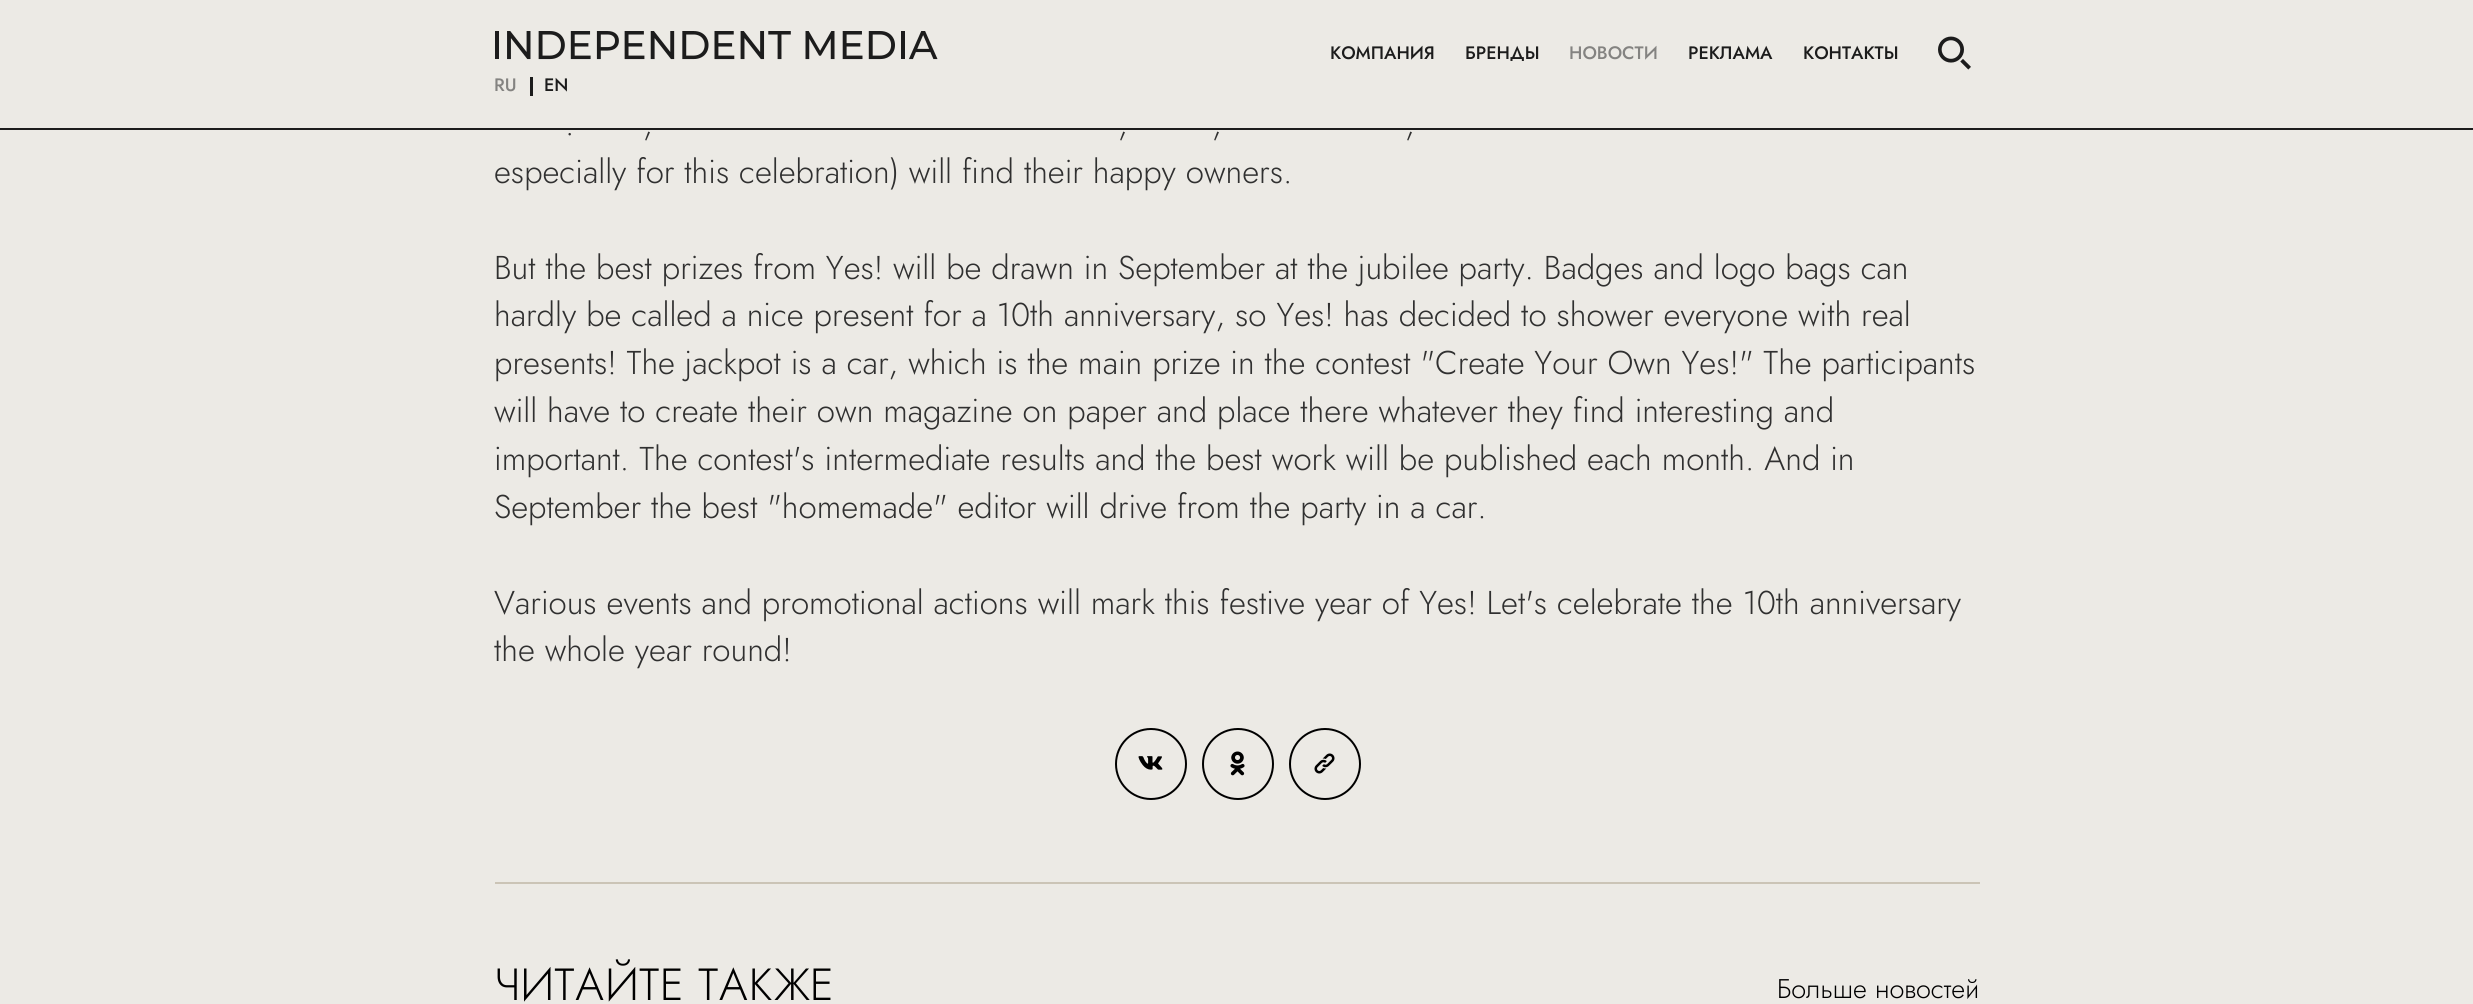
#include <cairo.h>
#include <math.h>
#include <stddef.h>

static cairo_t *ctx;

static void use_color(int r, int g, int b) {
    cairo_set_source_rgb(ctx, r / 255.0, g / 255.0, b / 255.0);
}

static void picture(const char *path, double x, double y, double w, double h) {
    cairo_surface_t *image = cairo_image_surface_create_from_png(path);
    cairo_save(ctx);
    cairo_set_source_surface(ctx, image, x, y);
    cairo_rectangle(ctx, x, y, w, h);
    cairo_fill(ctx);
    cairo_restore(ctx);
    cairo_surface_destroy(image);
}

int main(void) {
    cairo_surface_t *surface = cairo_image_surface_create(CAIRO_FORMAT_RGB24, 2473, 1004);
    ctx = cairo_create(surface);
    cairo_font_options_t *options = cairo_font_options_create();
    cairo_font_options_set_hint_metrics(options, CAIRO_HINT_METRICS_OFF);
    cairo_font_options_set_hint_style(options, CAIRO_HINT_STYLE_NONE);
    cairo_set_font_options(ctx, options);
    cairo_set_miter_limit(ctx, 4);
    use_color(236, 234, 229);
    cairo_paint(ctx);
    use_color(28, 28, 28);
    cairo_rectangle(ctx, 0, 128, 2473, 2);
    cairo_fill(ctx);
    picture("img1.png", 495, 31, 443, 29);
    cairo_select_font_face(ctx, "Jost Medium", CAIRO_FONT_SLANT_NORMAL, CAIRO_FONT_WEIGHT_NORMAL);
    cairo_set_font_size(ctx, 18);
    cairo_move_to(ctx, 1330, 59);
    cairo_show_text(ctx, "КОМПАНИЯ");
    cairo_move_to(ctx, 1465, 59);
    cairo_show_text(ctx, "БРЕНДЫ");
    use_color(132, 131, 129);
    cairo_move_to(ctx, 1569, 59);
    cairo_show_text(ctx, "НОВОСТИ");
    use_color(28, 28, 28);
    cairo_move_to(ctx, 1688, 59);
    cairo_show_text(ctx, "РЕКЛАМА");
    cairo_move_to(ctx, 1803, 59);
    cairo_show_text(ctx, "КОНТАКТЫ");
    picture("img2.png", 1938, 36, 33, 34);
    use_color(132, 131, 129);
    cairo_move_to(ctx, 494, 91);
    cairo_show_text(ctx, "RU");
    use_color(28, 28, 28);
    cairo_rectangle(ctx, 530, 77, 3, 19);
    cairo_fill(ctx);
    cairo_move_to(ctx, 544, 91);
    cairo_show_text(ctx, "EN");
    use_color(203, 196, 182);
    cairo_rectangle(ctx, 495, 882, 1485, 2);
    cairo_fill(ctx);
    cairo_select_font_face(ctx, "Jost Light", CAIRO_FONT_SLANT_NORMAL, CAIRO_FONT_WEIGHT_NORMAL);
    cairo_set_font_size(ctx, 33);
    use_color(48, 48, 48);
    cairo_move_to(ctx, 565, 135);
    cairo_show_text(ctx, ".");
    cairo_move_to(ctx, 643, 135);
    cairo_show_text(ctx, ",");
    cairo_move_to(ctx, 1118, 135);
    cairo_show_text(ctx, ",");
    cairo_move_to(ctx, 1212, 135);
    cairo_show_text(ctx, ",");
    cairo_move_to(ctx, 1405, 135);
    cairo_show_text(ctx, ",");
    cairo_move_to(ctx, 494, 183);
    cairo_show_text(ctx, "especially for this celebration) will find their happy owners.");
    cairo_move_to(ctx, 494, 279);
    cairo_show_text(ctx, "But the best prizes from Yes! will be drawn in September at the jubilee party. Badges and logo bags can");
    cairo_move_to(ctx, 494, 326);
    cairo_show_text(ctx, "hardly be called a nice present for a 10th anniversary, so Yes! has decided to shower everyone with real");
    cairo_move_to(ctx, 494, 374);
    cairo_show_text(ctx, "presents! The jackpot is a car, which is the main prize in the contest \"Create Your Own Yes!\" The participants");
    cairo_move_to(ctx, 494, 422);
    cairo_show_text(ctx, "will have to create their own magazine on paper and place there whatever they find interesting and");
    cairo_move_to(ctx, 494, 470);
    cairo_show_text(ctx, "important. The contest's intermediate results and the best work will be published each month. And in");
    cairo_move_to(ctx, 494, 518);
    cairo_show_text(ctx, "September the best \"homemade\" editor will drive from the party in a car.");
    cairo_move_to(ctx, 494, 614);
    cairo_show_text(ctx, "Various events and promotional actions will mark this festive year of Yes! Let's celebrate the 10th anniversary");
    cairo_move_to(ctx, 494, 661);
    cairo_show_text(ctx, "the whole year round!");
    cairo_new_path(ctx);
    cairo_arc(ctx, 1151, 764, 35, 0, 2 * M_PI);
    use_color(0, 0, 0);
    cairo_stroke(ctx);
    picture("img3.png", 1138, 756, 25, 14);
    cairo_arc(ctx, 1238, 764, 35, 0, 2 * M_PI);
    cairo_stroke(ctx);
    picture("img4.png", 1230, 751, 15, 25);
    cairo_arc(ctx, 1325, 764, 35, 0, 2 * M_PI);
    cairo_stroke(ctx);
    picture("img5.png", 1314, 753, 21, 21);
    cairo_set_font_size(ctx, 45);
    cairo_move_to(ctx, 494, 1000);
    cairo_show_text(ctx, "ЧИТАЙТЕ ТАКЖЕ");
    cairo_set_font_size(ctx, 27);
    cairo_move_to(ctx, 1777, 998);
    cairo_show_text(ctx, "Больше новостей");
    cairo_surface_write_to_png(surface, "result.png");
    cairo_font_options_destroy(options);
    cairo_destroy(ctx);
    cairo_surface_destroy(surface);
    return 0;
}
